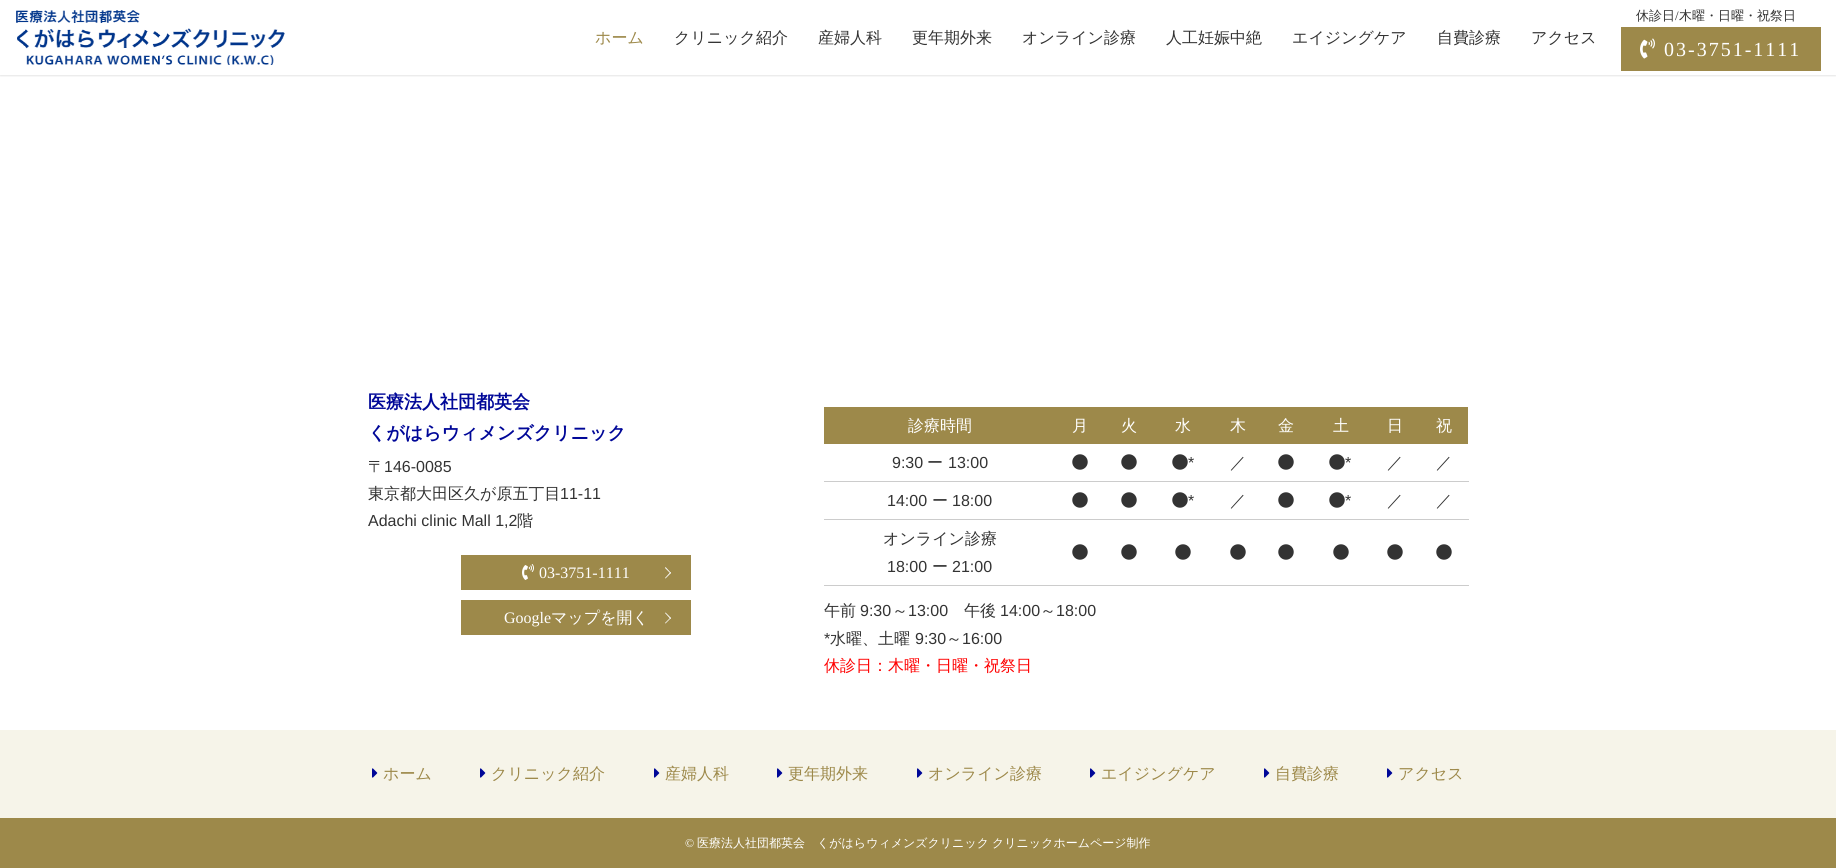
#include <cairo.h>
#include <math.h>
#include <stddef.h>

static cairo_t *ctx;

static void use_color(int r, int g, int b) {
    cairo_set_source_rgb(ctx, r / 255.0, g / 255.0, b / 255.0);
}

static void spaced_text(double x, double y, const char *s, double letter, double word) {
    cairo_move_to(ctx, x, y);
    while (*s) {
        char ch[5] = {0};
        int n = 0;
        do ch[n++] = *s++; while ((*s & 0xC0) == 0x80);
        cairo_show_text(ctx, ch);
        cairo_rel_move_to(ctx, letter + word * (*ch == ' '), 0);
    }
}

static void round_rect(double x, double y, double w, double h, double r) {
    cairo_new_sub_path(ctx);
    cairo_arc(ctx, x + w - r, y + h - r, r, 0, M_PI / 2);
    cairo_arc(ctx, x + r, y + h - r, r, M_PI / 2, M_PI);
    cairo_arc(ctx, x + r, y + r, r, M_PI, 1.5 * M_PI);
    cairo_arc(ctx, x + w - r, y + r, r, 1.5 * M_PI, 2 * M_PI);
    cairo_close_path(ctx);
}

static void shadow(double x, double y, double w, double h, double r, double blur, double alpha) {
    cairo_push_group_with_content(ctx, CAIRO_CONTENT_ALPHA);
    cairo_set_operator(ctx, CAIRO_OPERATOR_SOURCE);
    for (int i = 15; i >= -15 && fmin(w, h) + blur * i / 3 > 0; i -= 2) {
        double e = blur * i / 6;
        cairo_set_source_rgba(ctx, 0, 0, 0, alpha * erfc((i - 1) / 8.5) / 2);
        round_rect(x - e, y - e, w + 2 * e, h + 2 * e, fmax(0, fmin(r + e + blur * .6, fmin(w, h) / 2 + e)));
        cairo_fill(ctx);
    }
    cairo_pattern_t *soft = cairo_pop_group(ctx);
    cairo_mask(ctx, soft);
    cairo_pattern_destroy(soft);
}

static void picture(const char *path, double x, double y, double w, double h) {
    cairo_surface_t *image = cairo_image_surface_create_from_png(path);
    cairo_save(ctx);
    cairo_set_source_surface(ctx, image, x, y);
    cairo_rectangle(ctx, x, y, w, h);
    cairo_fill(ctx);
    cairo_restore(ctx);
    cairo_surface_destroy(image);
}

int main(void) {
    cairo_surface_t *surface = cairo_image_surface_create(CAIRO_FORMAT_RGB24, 1836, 868);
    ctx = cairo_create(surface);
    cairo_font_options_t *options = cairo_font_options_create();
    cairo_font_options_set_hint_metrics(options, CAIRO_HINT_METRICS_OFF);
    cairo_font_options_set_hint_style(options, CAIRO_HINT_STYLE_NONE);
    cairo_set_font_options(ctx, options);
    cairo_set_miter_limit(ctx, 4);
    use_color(255, 255, 255);
    cairo_paint(ctx);
    cairo_save(ctx);
    cairo_rectangle(ctx, 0, 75, 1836, 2);
    cairo_clip(ctx);
    use_color(0, 0, 0);
    shadow(0, 0, 1836, 75, 0, 1.5, 0.2);
    cairo_restore(ctx);
    picture("img1.png", 16, 10, 269, 55);
    cairo_select_font_face(ctx, "WenQuanYi Zen Hei Medium", CAIRO_FONT_SLANT_NORMAL, CAIRO_FONT_WEIGHT_NORMAL);
    cairo_set_font_size(ctx, 16);
    use_color(157, 137, 74);
    cairo_move_to(ctx, 595, 43);
    cairo_show_text(ctx, "ホーム");
    use_color(51, 51, 51);
    cairo_move_to(ctx, 674, 43);
    cairo_show_text(ctx, "クリニック紹介");
    cairo_move_to(ctx, 818, 43);
    cairo_show_text(ctx, "産婦人科");
    cairo_move_to(ctx, 912, 43);
    cairo_show_text(ctx, "更年期外来");
    cairo_move_to(ctx, 1022, 43);
    cairo_show_text(ctx, "オンライン診療");
    cairo_move_to(ctx, 1166, 43);
    cairo_show_text(ctx, "人工妊娠中絶");
    cairo_move_to(ctx, 1292, 43);
    cairo_show_text(ctx, "エイジングケア");
    cairo_move_to(ctx, 1437, 43);
    cairo_show_text(ctx, "自費診療");
    cairo_move_to(ctx, 1531, 43);
    cairo_show_text(ctx, "アクセス");
    cairo_set_font_size(ctx, 13);
    cairo_move_to(ctx, 1636, 20);
    cairo_show_text(ctx, "休診日 木曜・日曜・祝祭日");
    cairo_select_font_face(ctx, "Liberation Serif", CAIRO_FONT_SLANT_NORMAL, CAIRO_FONT_WEIGHT_NORMAL);
    cairo_move_to(ctx, 1675, 20);
    cairo_show_text(ctx, "/");
    use_color(157, 137, 74);
    cairo_rectangle(ctx, 1621, 27, 200, 44);
    cairo_fill(ctx);
    picture("img2.png", 1640, 38, 15, 21);
    cairo_set_font_size(ctx, 20);
    use_color(255, 255, 255);
    spaced_text(1664, 56, "03-3751-1111", 2, 0);
    cairo_select_font_face(ctx, "WenQuanYi Zen Hei", CAIRO_FONT_SLANT_NORMAL, CAIRO_FONT_WEIGHT_BOLD);
    cairo_set_font_size(ctx, 18);
    use_color(0, 7, 152);
    cairo_move_to(ctx, 368, 408);
    cairo_show_text(ctx, "医療法人社団都英会");
    cairo_move_to(ctx, 368, 439);
    cairo_show_text(ctx, "くがはらウィメンズクリニック");
    cairo_select_font_face(ctx, "WenQuanYi Zen Hei Medium", CAIRO_FONT_SLANT_NORMAL, CAIRO_FONT_WEIGHT_NORMAL);
    cairo_set_font_size(ctx, 16);
    use_color(51, 51, 51);
    cairo_move_to(ctx, 368, 472);
    cairo_show_text(ctx, "〒");
    cairo_select_font_face(ctx, "Liberation Sans", CAIRO_FONT_SLANT_NORMAL, CAIRO_FONT_WEIGHT_NORMAL);
    cairo_move_to(ctx, 384, 472);
    cairo_show_text(ctx, "146-0085");
    cairo_select_font_face(ctx, "WenQuanYi Zen Hei Medium", CAIRO_FONT_SLANT_NORMAL, CAIRO_FONT_WEIGHT_NORMAL);
    cairo_move_to(ctx, 368, 499);
    cairo_show_text(ctx, "東京都大田区久が原五丁目");
    cairo_select_font_face(ctx, "Liberation Sans", CAIRO_FONT_SLANT_NORMAL, CAIRO_FONT_WEIGHT_NORMAL);
    cairo_move_to(ctx, 560, 499);
    cairo_show_text(ctx, "11-11");
    cairo_move_to(ctx, 368, 526);
    cairo_show_text(ctx, "Adachi clinic Mall 1,2");
    cairo_select_font_face(ctx, "WenQuanYi Zen Hei Medium", CAIRO_FONT_SLANT_NORMAL, CAIRO_FONT_WEIGHT_NORMAL);
    cairo_move_to(ctx, 517, 526);
    cairo_show_text(ctx, "階");
    use_color(157, 137, 74);
    cairo_rectangle(ctx, 461, 555, 230, 35);
    cairo_fill(ctx);
    picture("img3.png", 522, 564, 12, 16);
    cairo_select_font_face(ctx, "Liberation Serif", CAIRO_FONT_SLANT_NORMAL, CAIRO_FONT_WEIGHT_NORMAL);
    use_color(255, 255, 255);
    cairo_move_to(ctx, 539, 578);
    cairo_show_text(ctx, "03-3751-1111");
    cairo_new_path(ctx);
    cairo_move_to(ctx, 665.5, 567);
    cairo_line_to(ctx, 671, 573);
    cairo_line_to(ctx, 670.5, 573.5);
    cairo_line_to(ctx, 665, 568);
    cairo_close_path(ctx);
    cairo_fill(ctx);
    cairo_new_path(ctx);
    cairo_move_to(ctx, 670.5, 572);
    cairo_line_to(ctx, 671, 573);
    cairo_line_to(ctx, 665.5, 578.5);
    cairo_line_to(ctx, 665, 578);
    cairo_close_path(ctx);
    cairo_fill(ctx);
    use_color(157, 137, 74);
    cairo_rectangle(ctx, 461, 600, 230, 35);
    cairo_fill(ctx);
    use_color(255, 255, 255);
    cairo_move_to(ctx, 504, 623);
    cairo_show_text(ctx, "Google");
    cairo_select_font_face(ctx, "WenQuanYi Zen Hei Medium", CAIRO_FONT_SLANT_NORMAL, CAIRO_FONT_WEIGHT_NORMAL);
    cairo_move_to(ctx, 551, 623);
    cairo_show_text(ctx, "マップを開く");
    cairo_new_path(ctx);
    cairo_move_to(ctx, 665.5, 612.5);
    cairo_line_to(ctx, 671, 618);
    cairo_line_to(ctx, 670.5, 619);
    cairo_line_to(ctx, 665, 613);
    cairo_close_path(ctx);
    cairo_fill(ctx);
    cairo_new_path(ctx);
    cairo_move_to(ctx, 670.5, 617.5);
    cairo_line_to(ctx, 671, 618);
    cairo_line_to(ctx, 665.5, 623.5);
    cairo_line_to(ctx, 665, 623);
    cairo_close_path(ctx);
    cairo_fill(ctx);
    use_color(157, 137, 74);
    cairo_rectangle(ctx, 824, 407, 644, 37);
    cairo_fill(ctx);
    use_color(255, 255, 255);
    cairo_move_to(ctx, 908, 431);
    cairo_show_text(ctx, "診療時間");
    cairo_move_to(ctx, 1072, 431);
    cairo_show_text(ctx, "月");
    cairo_move_to(ctx, 1121, 431);
    cairo_show_text(ctx, "火");
    cairo_move_to(ctx, 1175, 431);
    cairo_show_text(ctx, "水");
    cairo_move_to(ctx, 1230, 431);
    cairo_show_text(ctx, "木");
    cairo_move_to(ctx, 1278, 431);
    cairo_show_text(ctx, "金");
    cairo_move_to(ctx, 1333, 431);
    cairo_show_text(ctx, "土");
    cairo_move_to(ctx, 1387, 431);
    cairo_show_text(ctx, "日");
    cairo_move_to(ctx, 1436, 431);
    cairo_show_text(ctx, "祝");
    cairo_select_font_face(ctx, "Liberation Sans", CAIRO_FONT_SLANT_NORMAL, CAIRO_FONT_WEIGHT_NORMAL);
    use_color(51, 51, 51);
    cairo_move_to(ctx, 892, 468);
    cairo_show_text(ctx, "9:30");
    cairo_select_font_face(ctx, "WenQuanYi Zen Hei Medium", CAIRO_FONT_SLANT_NORMAL, CAIRO_FONT_WEIGHT_NORMAL);
    cairo_move_to(ctx, 927, 468);
    cairo_show_text(ctx, "ー");
    cairo_select_font_face(ctx, "Liberation Sans", CAIRO_FONT_SLANT_NORMAL, CAIRO_FONT_WEIGHT_NORMAL);
    cairo_move_to(ctx, 948, 468);
    cairo_show_text(ctx, "13:00");
    picture("img4.png", 1072, 454, 16, 16);
    picture("img4.png", 1121, 454, 16, 16);
    picture("img4.png", 1172, 454, 16, 16);
    cairo_move_to(ctx, 1188, 468);
    cairo_show_text(ctx, "*");
    cairo_select_font_face(ctx, "WenQuanYi Zen Hei Medium", CAIRO_FONT_SLANT_NORMAL, CAIRO_FONT_WEIGHT_NORMAL);
    cairo_move_to(ctx, 1230, 468);
    cairo_show_text(ctx, "／");
    picture("img4.png", 1278, 454, 16, 16);
    picture("img4.png", 1329, 454, 16, 16);
    cairo_select_font_face(ctx, "Liberation Sans", CAIRO_FONT_SLANT_NORMAL, CAIRO_FONT_WEIGHT_NORMAL);
    cairo_move_to(ctx, 1345, 468);
    cairo_show_text(ctx, "*");
    cairo_select_font_face(ctx, "WenQuanYi Zen Hei Medium", CAIRO_FONT_SLANT_NORMAL, CAIRO_FONT_WEIGHT_NORMAL);
    cairo_move_to(ctx, 1387, 468);
    cairo_show_text(ctx, "／");
    use_color(204, 204, 204);
    cairo_rectangle(ctx, 824, 481, 645, 1);
    cairo_fill(ctx);
    use_color(51, 51, 51);
    cairo_move_to(ctx, 1436, 468);
    cairo_show_text(ctx, "／");
    cairo_select_font_face(ctx, "Liberation Sans", CAIRO_FONT_SLANT_NORMAL, CAIRO_FONT_WEIGHT_NORMAL);
    cairo_move_to(ctx, 887, 506);
    cairo_show_text(ctx, "14:00");
    cairo_select_font_face(ctx, "WenQuanYi Zen Hei Medium", CAIRO_FONT_SLANT_NORMAL, CAIRO_FONT_WEIGHT_NORMAL);
    cairo_move_to(ctx, 932, 506);
    cairo_show_text(ctx, "ー");
    cairo_select_font_face(ctx, "Liberation Sans", CAIRO_FONT_SLANT_NORMAL, CAIRO_FONT_WEIGHT_NORMAL);
    cairo_move_to(ctx, 952, 506);
    cairo_show_text(ctx, "18:00");
    picture("img4.png", 1072, 492, 16, 16);
    picture("img4.png", 1121, 492, 16, 16);
    picture("img4.png", 1172, 492, 16, 16);
    cairo_move_to(ctx, 1188, 506);
    cairo_show_text(ctx, "*");
    cairo_select_font_face(ctx, "WenQuanYi Zen Hei Medium", CAIRO_FONT_SLANT_NORMAL, CAIRO_FONT_WEIGHT_NORMAL);
    cairo_move_to(ctx, 1230, 506);
    cairo_show_text(ctx, "／");
    picture("img4.png", 1278, 492, 16, 16);
    picture("img4.png", 1329, 492, 16, 16);
    cairo_select_font_face(ctx, "Liberation Sans", CAIRO_FONT_SLANT_NORMAL, CAIRO_FONT_WEIGHT_NORMAL);
    cairo_move_to(ctx, 1345, 506);
    cairo_show_text(ctx, "*");
    cairo_select_font_face(ctx, "WenQuanYi Zen Hei Medium", CAIRO_FONT_SLANT_NORMAL, CAIRO_FONT_WEIGHT_NORMAL);
    cairo_move_to(ctx, 1387, 506);
    cairo_show_text(ctx, "／");
    use_color(204, 204, 204);
    cairo_rectangle(ctx, 824, 519, 645, 1);
    cairo_fill(ctx);
    use_color(51, 51, 51);
    cairo_move_to(ctx, 1436, 506);
    cairo_show_text(ctx, "／");
    cairo_move_to(ctx, 883, 544);
    cairo_show_text(ctx, "オンライン診療");
    cairo_select_font_face(ctx, "Liberation Sans", CAIRO_FONT_SLANT_NORMAL, CAIRO_FONT_WEIGHT_NORMAL);
    cairo_move_to(ctx, 887, 572);
    cairo_show_text(ctx, "18:00");
    cairo_select_font_face(ctx, "WenQuanYi Zen Hei Medium", CAIRO_FONT_SLANT_NORMAL, CAIRO_FONT_WEIGHT_NORMAL);
    cairo_move_to(ctx, 932, 572);
    cairo_show_text(ctx, "ー");
    cairo_select_font_face(ctx, "Liberation Sans", CAIRO_FONT_SLANT_NORMAL, CAIRO_FONT_WEIGHT_NORMAL);
    cairo_move_to(ctx, 952, 572);
    cairo_show_text(ctx, "21:00");
    use_color(204, 204, 204);
    cairo_rectangle(ctx, 824, 585, 645, 1);
    cairo_fill(ctx);
    picture("img4.png", 1436, 544, 16, 16);
    picture("img4.png", 1072, 544, 16, 16);
    picture("img4.png", 1121, 544, 16, 16);
    picture("img4.png", 1175, 544, 16, 16);
    picture("img4.png", 1230, 544, 16, 16);
    picture("img4.png", 1278, 544, 16, 16);
    picture("img4.png", 1333, 544, 16, 16);
    picture("img4.png", 1387, 544, 16, 16);
    cairo_select_font_face(ctx, "WenQuanYi Zen Hei Medium", CAIRO_FONT_SLANT_NORMAL, CAIRO_FONT_WEIGHT_NORMAL);
    use_color(51, 51, 51);
    cairo_move_to(ctx, 824, 616);
    cairo_show_text(ctx, "午前");
    cairo_select_font_face(ctx, "Liberation Sans", CAIRO_FONT_SLANT_NORMAL, CAIRO_FONT_WEIGHT_NORMAL);
    cairo_move_to(ctx, 860, 616);
    cairo_show_text(ctx, "9:30");
    cairo_select_font_face(ctx, "WenQuanYi Zen Hei Medium", CAIRO_FONT_SLANT_NORMAL, CAIRO_FONT_WEIGHT_NORMAL);
    cairo_move_to(ctx, 892, 616);
    cairo_show_text(ctx, "～");
    cairo_select_font_face(ctx, "Liberation Sans", CAIRO_FONT_SLANT_NORMAL, CAIRO_FONT_WEIGHT_NORMAL);
    cairo_move_to(ctx, 908, 616);
    cairo_show_text(ctx, "13:00");
    cairo_select_font_face(ctx, "WenQuanYi Zen Hei Medium", CAIRO_FONT_SLANT_NORMAL, CAIRO_FONT_WEIGHT_NORMAL);
    cairo_move_to(ctx, 964, 616);
    cairo_show_text(ctx, "午後");
    cairo_select_font_face(ctx, "Liberation Sans", CAIRO_FONT_SLANT_NORMAL, CAIRO_FONT_WEIGHT_NORMAL);
    cairo_move_to(ctx, 1000, 616);
    cairo_show_text(ctx, "14:00");
    cairo_select_font_face(ctx, "WenQuanYi Zen Hei Medium", CAIRO_FONT_SLANT_NORMAL, CAIRO_FONT_WEIGHT_NORMAL);
    cairo_move_to(ctx, 1040, 616);
    cairo_show_text(ctx, "～");
    cairo_select_font_face(ctx, "Liberation Sans", CAIRO_FONT_SLANT_NORMAL, CAIRO_FONT_WEIGHT_NORMAL);
    cairo_move_to(ctx, 1056, 616);
    cairo_show_text(ctx, "18:00");
    cairo_move_to(ctx, 824, 644);
    cairo_show_text(ctx, "*");
    cairo_select_font_face(ctx, "WenQuanYi Zen Hei Medium", CAIRO_FONT_SLANT_NORMAL, CAIRO_FONT_WEIGHT_NORMAL);
    cairo_move_to(ctx, 830, 644);
    cairo_show_text(ctx, "水曜、土曜");
    cairo_select_font_face(ctx, "Liberation Sans", CAIRO_FONT_SLANT_NORMAL, CAIRO_FONT_WEIGHT_NORMAL);
    cairo_move_to(ctx, 915, 644);
    cairo_show_text(ctx, "9:30");
    cairo_move_to(ctx, 962, 644);
    cairo_show_text(ctx, "16:00");
    cairo_select_font_face(ctx, "WenQuanYi Zen Hei Medium", CAIRO_FONT_SLANT_NORMAL, CAIRO_FONT_WEIGHT_NORMAL);
    cairo_move_to(ctx, 946, 644);
    cairo_show_text(ctx, "～");
    use_color(255, 0, 0);
    cairo_move_to(ctx, 824, 671);
    cairo_show_text(ctx, "休診日：木曜・日曜・祝祭日");
    use_color(246, 244, 233);
    cairo_rectangle(ctx, 0, 730, 1836, 88);
    cairo_fill(ctx);
    picture("img5.png", 372, 768, 6, 10);
    use_color(157, 137, 74);
    cairo_move_to(ctx, 383, 779);
    cairo_show_text(ctx, "ホーム");
    picture("img5.png", 480, 768, 6, 10);
    cairo_move_to(ctx, 491, 779);
    cairo_show_text(ctx, "クリニック紹介");
    picture("img5.png", 654, 768, 6, 10);
    cairo_move_to(ctx, 665, 779);
    cairo_show_text(ctx, "産婦人科");
    picture("img5.png", 777, 768, 6, 10);
    cairo_move_to(ctx, 788, 779);
    cairo_show_text(ctx, "更年期外来");
    picture("img5.png", 917, 768, 6, 10);
    cairo_move_to(ctx, 928, 779);
    cairo_show_text(ctx, "オンライン診療");
    picture("img5.png", 1090, 768, 6, 10);
    cairo_move_to(ctx, 1101, 779);
    cairo_show_text(ctx, "エイジングケア");
    picture("img5.png", 1264, 768, 6, 10);
    cairo_move_to(ctx, 1275, 779);
    cairo_show_text(ctx, "自費診療");
    picture("img5.png", 1387, 768, 6, 10);
    cairo_move_to(ctx, 1398, 779);
    cairo_show_text(ctx, "アクセス");
    cairo_rectangle(ctx, 0, 818, 1836, 50);
    cairo_fill(ctx);
    cairo_select_font_face(ctx, "Liberation Serif", CAIRO_FONT_SLANT_NORMAL, CAIRO_FONT_WEIGHT_NORMAL);
    cairo_set_font_size(ctx, 12);
    use_color(255, 255, 255);
    cairo_move_to(ctx, 685, 847);
    cairo_show_text(ctx, "©");
    cairo_select_font_face(ctx, "WenQuanYi Zen Hei Medium", CAIRO_FONT_SLANT_NORMAL, CAIRO_FONT_WEIGHT_NORMAL);
    cairo_move_to(ctx, 697, 847);
    cairo_show_text(ctx, "医療法人社団都英会　くがはらウィメンズクリニック");
    cairo_move_to(ctx, 992, 847);
    cairo_show_text(ctx, "クリニックホームページ制作");
    cairo_surface_write_to_png(surface, "result.png");
    cairo_font_options_destroy(options);
    cairo_destroy(ctx);
    cairo_surface_destroy(surface);
    return 0;
}
